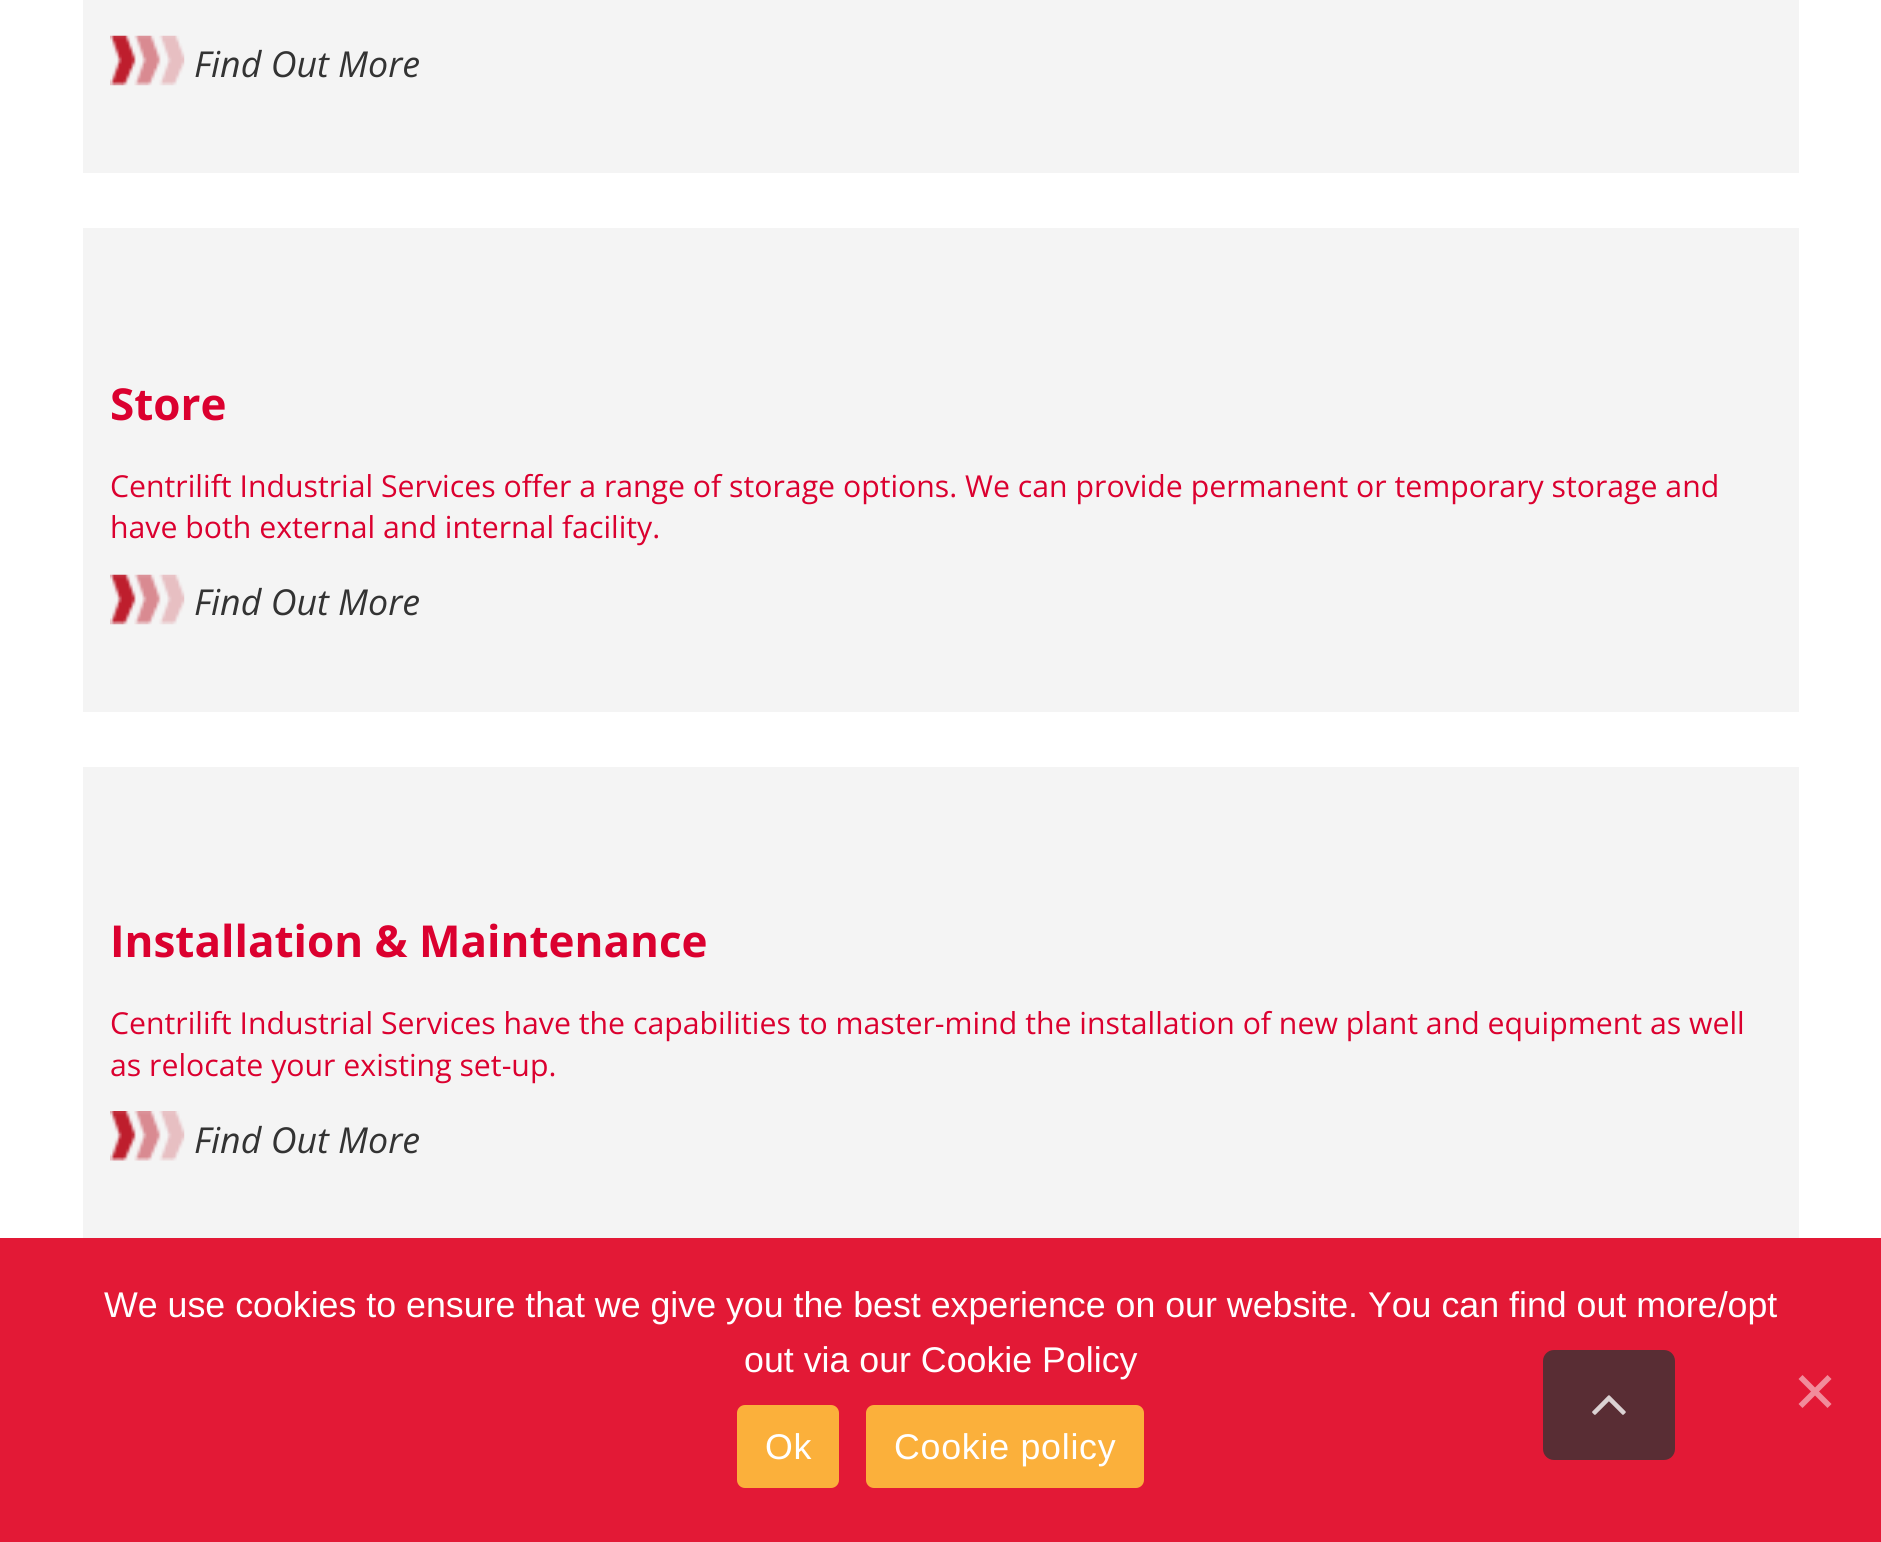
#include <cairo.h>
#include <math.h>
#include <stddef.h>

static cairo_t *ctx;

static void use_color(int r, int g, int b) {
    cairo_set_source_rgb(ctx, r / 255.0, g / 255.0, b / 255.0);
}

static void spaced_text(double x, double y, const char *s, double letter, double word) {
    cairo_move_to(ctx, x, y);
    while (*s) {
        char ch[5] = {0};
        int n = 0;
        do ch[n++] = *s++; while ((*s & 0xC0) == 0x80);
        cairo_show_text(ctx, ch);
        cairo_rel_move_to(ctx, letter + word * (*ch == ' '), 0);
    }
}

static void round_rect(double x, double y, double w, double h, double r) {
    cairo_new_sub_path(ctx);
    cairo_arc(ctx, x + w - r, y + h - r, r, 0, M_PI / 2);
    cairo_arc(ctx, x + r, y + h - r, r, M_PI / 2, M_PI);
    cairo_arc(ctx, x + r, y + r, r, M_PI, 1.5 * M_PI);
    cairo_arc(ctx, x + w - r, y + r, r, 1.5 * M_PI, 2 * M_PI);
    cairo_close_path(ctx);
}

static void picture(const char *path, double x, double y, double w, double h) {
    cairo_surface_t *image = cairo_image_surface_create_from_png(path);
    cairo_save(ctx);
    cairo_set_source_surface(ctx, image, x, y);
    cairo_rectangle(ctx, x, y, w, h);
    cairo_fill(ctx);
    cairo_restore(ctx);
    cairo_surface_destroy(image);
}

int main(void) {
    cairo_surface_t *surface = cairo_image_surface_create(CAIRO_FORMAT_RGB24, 1881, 1542);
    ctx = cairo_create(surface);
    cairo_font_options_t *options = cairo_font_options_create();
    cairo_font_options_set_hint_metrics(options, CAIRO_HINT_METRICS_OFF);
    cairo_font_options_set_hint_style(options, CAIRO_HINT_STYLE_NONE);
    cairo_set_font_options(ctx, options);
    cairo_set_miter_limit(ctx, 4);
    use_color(255, 255, 255);
    cairo_paint(ctx);
    use_color(244, 244, 244);
    cairo_rectangle(ctx, 83, 0, 1716, 173);
    cairo_fill(ctx);
    picture("img1.png", 110, 35, 75, 51);
    cairo_select_font_face(ctx, "Open Sans", CAIRO_FONT_SLANT_ITALIC, CAIRO_FONT_WEIGHT_NORMAL);
    cairo_set_font_size(ctx, 35.75);
    use_color(51, 51, 51);
    cairo_move_to(ctx, 194, 77);
    cairo_show_text(ctx, "Find Out More");
    use_color(244, 244, 244);
    cairo_rectangle(ctx, 83, 228, 1716, 484);
    cairo_fill(ctx);
    cairo_select_font_face(ctx, "Open Sans", CAIRO_FONT_SLANT_NORMAL, CAIRO_FONT_WEIGHT_BOLD);
    cairo_set_font_size(ctx, 44);
    use_color(219, 0, 47);
    cairo_move_to(ctx, 110, 420);
    cairo_show_text(ctx, "Store");
    cairo_select_font_face(ctx, "Open Sans", CAIRO_FONT_SLANT_NORMAL, CAIRO_FONT_WEIGHT_NORMAL);
    cairo_set_font_size(ctx, 30.25);
    cairo_move_to(ctx, 110, 497);
    cairo_show_text(ctx, "Centrilift Industrial Services offer a range of storage options. We can provide permanent or temporary storage and");
    cairo_move_to(ctx, 110, 538);
    cairo_show_text(ctx, "have both external and internal facility.");
    picture("img1.png", 110, 574, 75, 51);
    cairo_select_font_face(ctx, "Open Sans", CAIRO_FONT_SLANT_ITALIC, CAIRO_FONT_WEIGHT_NORMAL);
    cairo_set_font_size(ctx, 35.75);
    use_color(51, 51, 51);
    cairo_move_to(ctx, 194, 615);
    cairo_show_text(ctx, "Find Out More");
    use_color(244, 244, 244);
    cairo_rectangle(ctx, 83, 767, 1716, 471);
    cairo_fill(ctx);
    cairo_select_font_face(ctx, "Open Sans", CAIRO_FONT_SLANT_NORMAL, CAIRO_FONT_WEIGHT_BOLD);
    cairo_set_font_size(ctx, 44);
    use_color(219, 0, 47);
    cairo_move_to(ctx, 110, 957);
    cairo_show_text(ctx, "Installation & Maintenance");
    cairo_select_font_face(ctx, "Open Sans", CAIRO_FONT_SLANT_NORMAL, CAIRO_FONT_WEIGHT_NORMAL);
    cairo_set_font_size(ctx, 30.25);
    cairo_move_to(ctx, 110, 1034);
    cairo_show_text(ctx, "Centrilift Industrial Services have the capabilities to master-mind the installation of new plant and equipment as well");
    cairo_move_to(ctx, 110, 1076);
    cairo_show_text(ctx, "as relocate your existing set-up.");
    picture("img2.png", 110, 1111, 75, 50);
    cairo_select_font_face(ctx, "Open Sans", CAIRO_FONT_SLANT_ITALIC, CAIRO_FONT_WEIGHT_NORMAL);
    cairo_set_font_size(ctx, 35.75);
    use_color(51, 51, 51);
    cairo_move_to(ctx, 194, 1153);
    cairo_show_text(ctx, "Find Out More");
    use_color(227, 25, 54);
    cairo_rectangle(ctx, 0, 1238, 1881, 304);
    cairo_fill(ctx);
    cairo_select_font_face(ctx, "Liberation Sans", CAIRO_FONT_SLANT_NORMAL, CAIRO_FONT_WEIGHT_NORMAL);
    use_color(255, 255, 255);
    cairo_move_to(ctx, 104, 1317);
    cairo_show_text(ctx, "We use cookies to ensure that we give you the best experience on our website. You can find out more/opt");
    cairo_move_to(ctx, 744, 1372);
    cairo_show_text(ctx, "out via our Cookie Policy");
    use_color(241, 140, 155);
    cairo_new_path(ctx);
    cairo_move_to(ctx, 1827.5, 1375);
    cairo_line_to(ctx, 1831.5, 1379);
    cairo_line_to(ctx, 1802.5, 1408);
    cairo_line_to(ctx, 1798.5, 1404);
    cairo_close_path(ctx);
    cairo_fill(ctx);
    cairo_new_path(ctx);
    cairo_move_to(ctx, 1798.5, 1379);
    cairo_line_to(ctx, 1802.5, 1375);
    cairo_line_to(ctx, 1831.5, 1404);
    cairo_line_to(ctx, 1827.5, 1408);
    cairo_close_path(ctx);
    cairo_fill(ctx);
    use_color(251, 176, 59);
    round_rect(737, 1405, 102, 83, 8);
    cairo_fill(ctx);
    use_color(255, 255, 255);
    spaced_text(765, 1459, "Ok", 0.75, 0);
    use_color(251, 176, 59);
    round_rect(866, 1405, 278, 83, 8);
    cairo_fill(ctx);
    use_color(255, 255, 255);
    spaced_text(894, 1459, "Cookie policy", 0.75, 0);
    use_color(89, 45, 52);
    round_rect(1543, 1350, 132, 110, 11);
    cairo_fill(ctx);
    picture("img3.png", 1592, 1395, 34, 20);
    cairo_surface_write_to_png(surface, "result.png");
    cairo_font_options_destroy(options);
    cairo_destroy(ctx);
    cairo_surface_destroy(surface);
    return 0;
}
